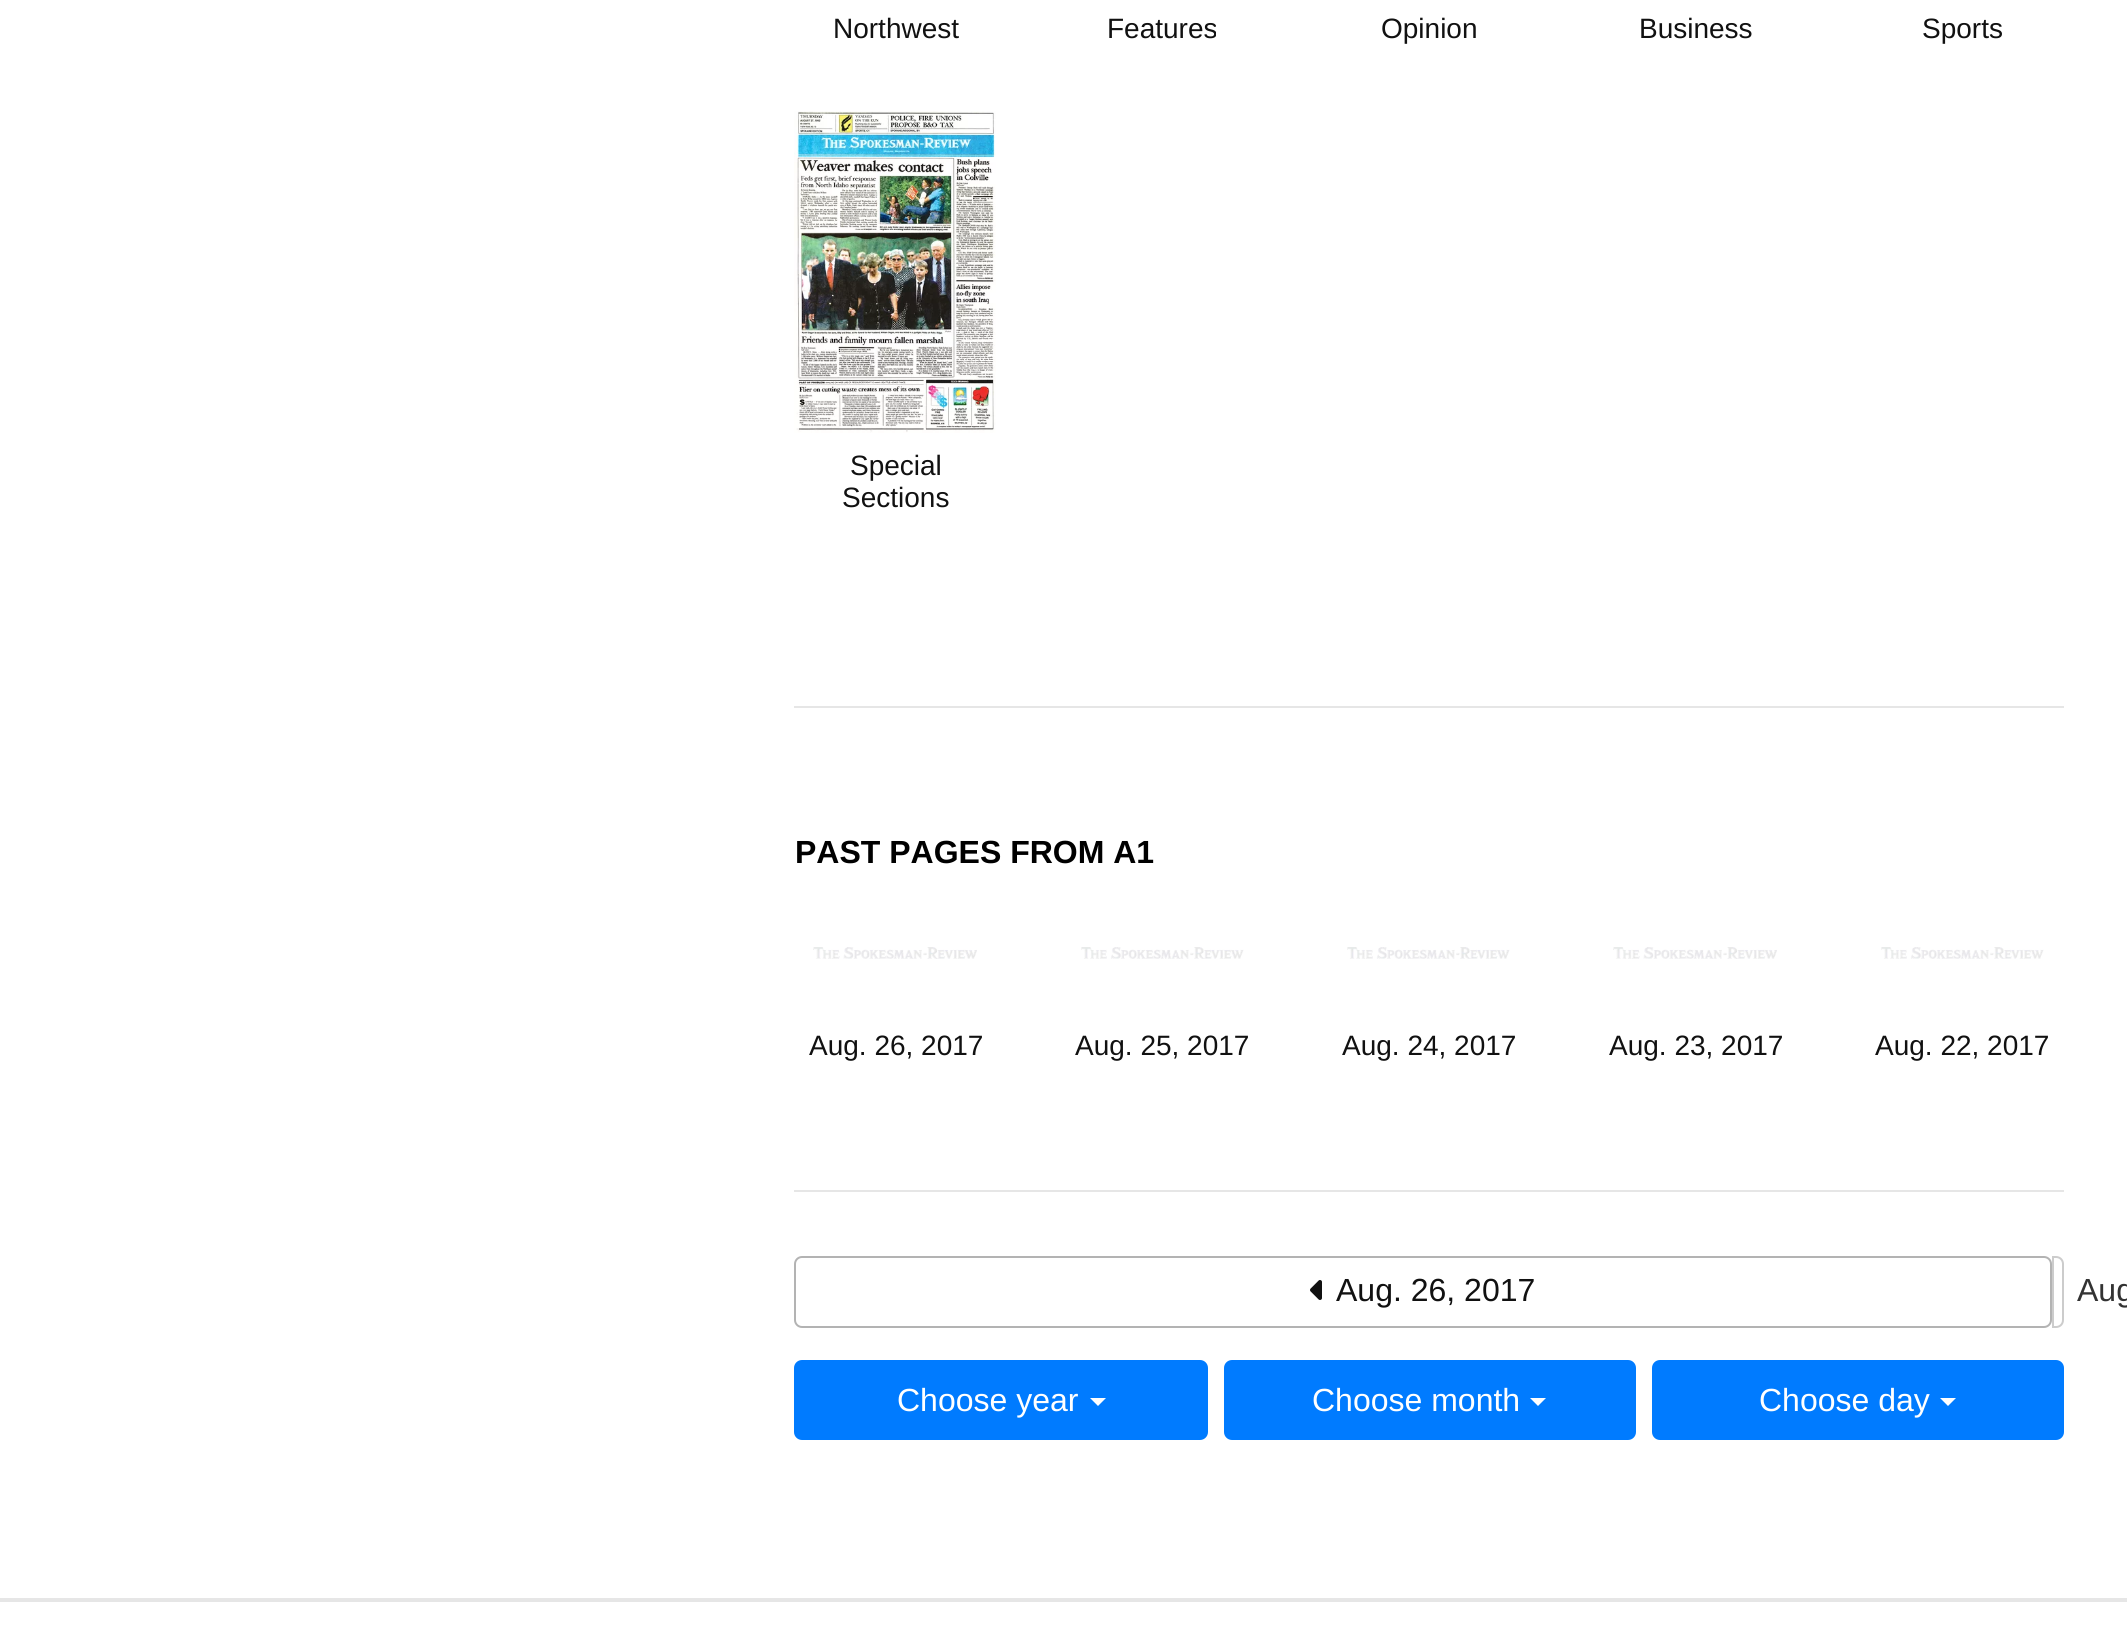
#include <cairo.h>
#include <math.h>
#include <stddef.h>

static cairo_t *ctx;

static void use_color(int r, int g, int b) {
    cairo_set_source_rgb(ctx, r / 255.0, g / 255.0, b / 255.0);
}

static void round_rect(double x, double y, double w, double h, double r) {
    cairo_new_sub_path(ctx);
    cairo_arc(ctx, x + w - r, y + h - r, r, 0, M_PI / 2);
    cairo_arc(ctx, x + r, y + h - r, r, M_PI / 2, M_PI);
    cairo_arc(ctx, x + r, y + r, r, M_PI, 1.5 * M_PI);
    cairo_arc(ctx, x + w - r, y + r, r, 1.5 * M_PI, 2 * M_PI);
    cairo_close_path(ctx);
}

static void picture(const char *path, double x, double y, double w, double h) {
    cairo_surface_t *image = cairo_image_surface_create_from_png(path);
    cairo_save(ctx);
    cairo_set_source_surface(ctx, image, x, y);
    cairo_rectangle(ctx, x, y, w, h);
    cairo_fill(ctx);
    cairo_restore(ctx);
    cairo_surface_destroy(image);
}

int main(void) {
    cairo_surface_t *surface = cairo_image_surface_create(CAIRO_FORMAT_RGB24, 2127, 1646);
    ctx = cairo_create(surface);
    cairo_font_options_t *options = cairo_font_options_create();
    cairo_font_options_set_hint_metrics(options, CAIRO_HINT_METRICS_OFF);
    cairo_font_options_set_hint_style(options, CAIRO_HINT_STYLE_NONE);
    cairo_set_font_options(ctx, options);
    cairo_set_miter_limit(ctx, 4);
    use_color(255, 255, 255);
    cairo_paint(ctx);
    cairo_select_font_face(ctx, "Liberation Sans", CAIRO_FONT_SLANT_NORMAL, CAIRO_FONT_WEIGHT_NORMAL);
    cairo_set_font_size(ctx, 28);
    use_color(17, 17, 17);
    cairo_move_to(ctx, 833, 38);
    cairo_show_text(ctx, "Northwest");
    cairo_move_to(ctx, 1107, 38);
    cairo_show_text(ctx, "Features");
    cairo_move_to(ctx, 1381, 38);
    cairo_show_text(ctx, "Opinion");
    cairo_move_to(ctx, 1639, 38);
    cairo_show_text(ctx, "Business");
    cairo_move_to(ctx, 1922, 38);
    cairo_show_text(ctx, "Sports");
    picture("img1.png", 794, 111, 202, 322);
    cairo_move_to(ctx, 850, 475);
    cairo_show_text(ctx, "Special");
    cairo_move_to(ctx, 842, 507);
    cairo_show_text(ctx, "Sections");
    use_color(230, 230, 230);
    cairo_rectangle(ctx, 794, 706, 1270, 2);
    cairo_fill(ctx);
    cairo_select_font_face(ctx, "Liberation Sans", CAIRO_FONT_SLANT_NORMAL, CAIRO_FONT_WEIGHT_BOLD);
    cairo_set_font_size(ctx, 32);
    use_color(0, 0, 0);
    cairo_move_to(ctx, 795, 863);
    cairo_show_text(ctx, "PAST PAGES FROM A1");
    picture("img2.png", 813, 947, 164, 12);
    cairo_select_font_face(ctx, "Liberation Sans", CAIRO_FONT_SLANT_NORMAL, CAIRO_FONT_WEIGHT_NORMAL);
    cairo_set_font_size(ctx, 28);
    use_color(17, 17, 17);
    cairo_move_to(ctx, 809, 1055);
    cairo_show_text(ctx, "Aug. 26, 2017");
    picture("img3.png", 1081, 947, 163, 12);
    cairo_move_to(ctx, 1075, 1055);
    cairo_show_text(ctx, "Aug. 25, 2017");
    picture("img3.png", 1347, 947, 163, 12);
    cairo_move_to(ctx, 1342, 1055);
    cairo_show_text(ctx, "Aug. 24, 2017");
    picture("img4.png", 1613, 947, 164, 12);
    cairo_move_to(ctx, 1609, 1055);
    cairo_show_text(ctx, "Aug. 23, 2017");
    picture("img3.png", 1881, 947, 163, 12);
    cairo_move_to(ctx, 1875, 1055);
    cairo_show_text(ctx, "Aug. 22, 2017");
    use_color(230, 230, 230);
    cairo_rectangle(ctx, 794, 1190, 1270, 2);
    cairo_fill(ctx);
    round_rect(795, 1257, 1256, 70, 7);
    use_color(179, 179, 179);
    cairo_stroke(ctx);
    picture("img5.png", 1310, 1280, 12, 20);
    cairo_set_font_size(ctx, 32);
    use_color(17, 17, 17);
    cairo_move_to(ctx, 1336, 1301);
    cairo_show_text(ctx, "Aug. 26, 2017");
    cairo_new_path(ctx);
    cairo_move_to(ctx, 2053, 1257);
    cairo_line_to(ctx, 2056, 1257);
    cairo_curve_to(ctx, 2060, 1257, 2063, 1260, 2063, 1264);
    cairo_line_to(ctx, 2063, 1320);
    cairo_curve_to(ctx, 2063, 1324, 2060, 1327, 2056, 1327);
    cairo_line_to(ctx, 2053, 1327);
    cairo_close_path(ctx);
    use_color(204, 204, 204);
    cairo_stroke(ctx);
    use_color(51, 51, 51);
    cairo_move_to(ctx, 2077, 1301);
    cairo_show_text(ctx, "Aug");
    use_color(0, 123, 255);
    round_rect(794, 1360, 414, 80, 8);
    cairo_fill(ctx);
    use_color(255, 255, 255);
    cairo_move_to(ctx, 897, 1411);
    cairo_show_text(ctx, "Choose year");
    cairo_new_path(ctx);
    cairo_move_to(ctx, 1090, 1398);
    cairo_line_to(ctx, 1106, 1398);
    cairo_line_to(ctx, 1098, 1406);
    cairo_close_path(ctx);
    cairo_fill(ctx);
    use_color(0, 123, 255);
    round_rect(1224, 1360, 412, 80, 8);
    cairo_fill(ctx);
    use_color(255, 255, 255);
    cairo_move_to(ctx, 1312, 1411);
    cairo_show_text(ctx, "Choose month");
    cairo_new_path(ctx);
    cairo_move_to(ctx, 1530, 1398);
    cairo_line_to(ctx, 1546, 1398);
    cairo_line_to(ctx, 1538, 1406);
    cairo_close_path(ctx);
    cairo_fill(ctx);
    use_color(0, 123, 255);
    round_rect(1652, 1360, 412, 80, 8);
    cairo_fill(ctx);
    use_color(255, 255, 255);
    cairo_move_to(ctx, 1759, 1411);
    cairo_show_text(ctx, "Choose day");
    cairo_new_path(ctx);
    cairo_move_to(ctx, 1940, 1398);
    cairo_line_to(ctx, 1956, 1398);
    cairo_line_to(ctx, 1948, 1406);
    cairo_close_path(ctx);
    cairo_fill(ctx);
    use_color(230, 230, 230);
    cairo_rectangle(ctx, 0, 1598, 2127, 4);
    cairo_fill(ctx);
    cairo_surface_write_to_png(surface, "result.png");
    cairo_font_options_destroy(options);
    cairo_destroy(ctx);
    cairo_surface_destroy(surface);
    return 0;
}
